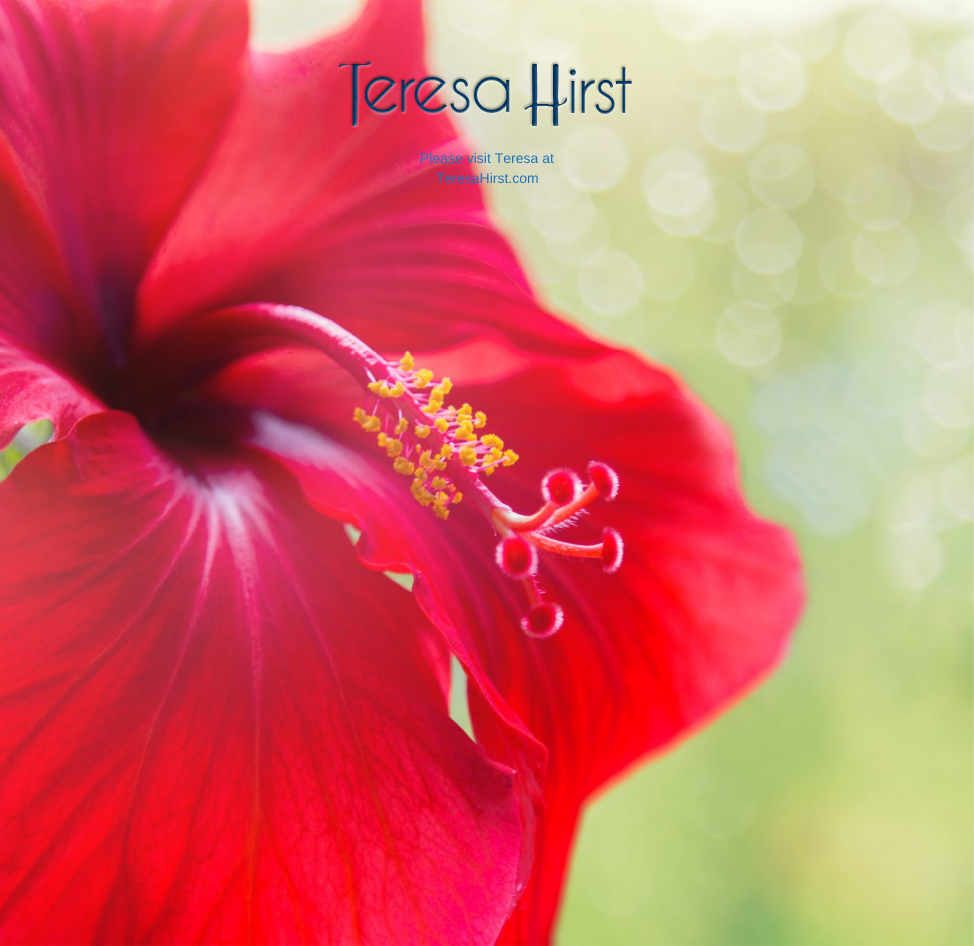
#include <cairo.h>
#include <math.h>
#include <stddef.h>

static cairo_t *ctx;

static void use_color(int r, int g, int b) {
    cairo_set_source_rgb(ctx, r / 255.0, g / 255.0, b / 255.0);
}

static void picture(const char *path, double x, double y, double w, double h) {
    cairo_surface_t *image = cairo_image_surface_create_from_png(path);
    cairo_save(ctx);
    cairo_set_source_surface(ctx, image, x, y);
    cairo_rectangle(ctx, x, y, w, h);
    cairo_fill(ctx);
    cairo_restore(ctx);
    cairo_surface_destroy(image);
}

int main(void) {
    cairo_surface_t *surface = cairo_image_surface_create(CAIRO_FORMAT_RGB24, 974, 946);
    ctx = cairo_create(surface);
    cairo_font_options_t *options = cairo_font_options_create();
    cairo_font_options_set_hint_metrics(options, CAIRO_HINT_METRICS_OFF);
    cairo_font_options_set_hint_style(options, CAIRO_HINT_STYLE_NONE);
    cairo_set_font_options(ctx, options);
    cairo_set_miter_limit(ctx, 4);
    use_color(255, 255, 255);
    cairo_paint(ctx);
    picture("img1.png", 0, 0, 974, 946);
    picture("img2.png", 337, 60, 297, 68);
    cairo_select_font_face(ctx, "Liberation Sans", CAIRO_FONT_SLANT_NORMAL, CAIRO_FONT_WEIGHT_NORMAL);
    cairo_set_font_size(ctx, 14);
    use_color(30, 115, 190);
    cairo_move_to(ctx, 420, 163);
    cairo_show_text(ctx, "Please visit Teresa at");
    cairo_move_to(ctx, 436, 183);
    cairo_show_text(ctx, "TeresaHirst.com");
    cairo_surface_write_to_png(surface, "result.png");
    cairo_font_options_destroy(options);
    cairo_destroy(ctx);
    cairo_surface_destroy(surface);
    return 0;
}
